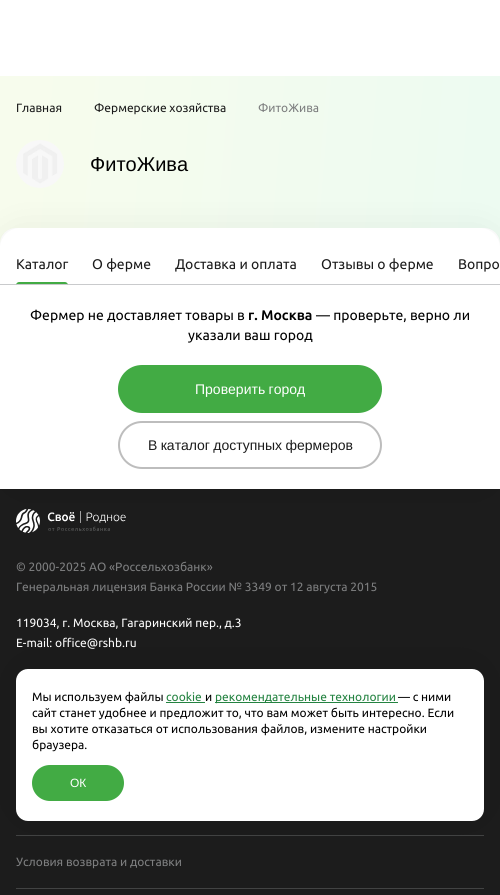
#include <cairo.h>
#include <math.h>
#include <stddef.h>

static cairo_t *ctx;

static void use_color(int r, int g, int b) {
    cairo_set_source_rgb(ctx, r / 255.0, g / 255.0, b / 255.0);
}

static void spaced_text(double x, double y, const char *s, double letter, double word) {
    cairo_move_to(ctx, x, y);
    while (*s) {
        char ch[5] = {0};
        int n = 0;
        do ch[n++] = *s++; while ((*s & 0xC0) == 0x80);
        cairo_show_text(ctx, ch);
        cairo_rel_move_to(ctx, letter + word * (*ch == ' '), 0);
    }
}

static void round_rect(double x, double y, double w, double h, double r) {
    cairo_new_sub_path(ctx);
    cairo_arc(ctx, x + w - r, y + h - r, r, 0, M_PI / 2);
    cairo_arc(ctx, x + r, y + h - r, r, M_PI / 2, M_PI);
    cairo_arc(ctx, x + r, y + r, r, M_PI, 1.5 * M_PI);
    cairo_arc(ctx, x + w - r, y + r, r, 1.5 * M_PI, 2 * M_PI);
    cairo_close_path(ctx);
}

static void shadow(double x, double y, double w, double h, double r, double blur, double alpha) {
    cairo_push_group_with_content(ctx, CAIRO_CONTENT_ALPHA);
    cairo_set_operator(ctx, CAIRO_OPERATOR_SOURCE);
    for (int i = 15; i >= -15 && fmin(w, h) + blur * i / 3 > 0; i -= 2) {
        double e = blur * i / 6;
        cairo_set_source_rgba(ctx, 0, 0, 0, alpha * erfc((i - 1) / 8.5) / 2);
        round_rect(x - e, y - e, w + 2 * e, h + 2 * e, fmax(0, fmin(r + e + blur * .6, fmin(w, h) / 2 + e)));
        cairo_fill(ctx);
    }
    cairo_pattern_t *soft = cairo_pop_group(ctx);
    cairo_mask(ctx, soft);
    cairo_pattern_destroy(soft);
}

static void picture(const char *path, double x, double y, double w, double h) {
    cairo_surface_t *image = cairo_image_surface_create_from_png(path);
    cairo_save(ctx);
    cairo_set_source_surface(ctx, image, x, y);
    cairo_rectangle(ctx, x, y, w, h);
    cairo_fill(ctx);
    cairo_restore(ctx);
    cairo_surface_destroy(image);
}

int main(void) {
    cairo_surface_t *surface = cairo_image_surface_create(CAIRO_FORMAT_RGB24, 500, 895);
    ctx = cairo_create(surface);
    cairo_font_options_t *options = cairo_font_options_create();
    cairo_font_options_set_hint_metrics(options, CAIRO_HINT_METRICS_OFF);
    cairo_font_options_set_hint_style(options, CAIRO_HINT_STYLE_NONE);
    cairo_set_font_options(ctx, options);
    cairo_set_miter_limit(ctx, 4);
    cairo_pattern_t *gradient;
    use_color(255, 255, 255);
    cairo_paint(ctx);
    gradient = cairo_pattern_create_linear(-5.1, 139, 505, 181);
    cairo_pattern_add_color_stop_rgba(gradient, 0.05, 0.969, 0.988, 0.929, 1);
    cairo_pattern_add_color_stop_rgba(gradient, 0.97, 0.929, 0.984, 0.945, 1);
    cairo_set_source(ctx, gradient);
    cairo_pattern_destroy(gradient);
    cairo_rectangle(ctx, 0, 76, 500, 168);
    cairo_fill(ctx);
    cairo_select_font_face(ctx, "Ubuntu", CAIRO_FONT_SLANT_NORMAL, CAIRO_FONT_WEIGHT_NORMAL);
    cairo_set_font_size(ctx, 12);
    use_color(28, 28, 28);
    cairo_move_to(ctx, 16, 112);
    cairo_show_text(ctx, "Главная");
    cairo_move_to(ctx, 94, 112);
    cairo_show_text(ctx, "Фермерские хозяйства");
    use_color(125, 126, 127);
    cairo_move_to(ctx, 258, 112);
    cairo_show_text(ctx, "ФитоЖива");
    picture("img1.png", 16, 140, 48, 48);
    cairo_select_font_face(ctx, "Liberation Sans", CAIRO_FONT_SLANT_NORMAL, CAIRO_FONT_WEIGHT_NORMAL);
    cairo_set_font_size(ctx, 20);
    use_color(0, 0, 0);
    cairo_move_to(ctx, 90, 171);
    cairo_show_text(ctx, "ФитоЖива");
    use_color(255, 255, 255);
    cairo_new_path(ctx);
    cairo_move_to(ctx, 16, 228);
    cairo_line_to(ctx, 484, 228);
    cairo_curve_to(ctx, 493, 228, 500, 235, 500, 244);
    cairo_line_to(ctx, 0, 244);
    cairo_curve_to(ctx, 0, 235, 7, 228, 16, 228);
    cairo_close_path(ctx);
    cairo_fill(ctx);
    use_color(28, 28, 28);
    cairo_rectangle(ctx, 0, 489, 500, 406);
    cairo_fill(ctx);
    picture("img2.png", 16, 509, 110, 24);
    use_color(0, 0, 0);
    shadow(0, 232, 500, 261, 20, 20, 0.07);
    use_color(255, 255, 255);
    cairo_new_path(ctx);
    cairo_move_to(ctx, 20, 228);
    cairo_line_to(ctx, 480, 228);
    cairo_curve_to(ctx, 491, 228, 500, 237, 500, 248);
    cairo_line_to(ctx, 500, 489);
    cairo_line_to(ctx, 0, 489);
    cairo_line_to(ctx, 0, 248);
    cairo_curve_to(ctx, 0, 237, 9, 228, 20, 228);
    cairo_close_path(ctx);
    cairo_fill(ctx);
    use_color(201, 202, 204);
    cairo_rectangle(ctx, 0, 284, 500, 1);
    cairo_fill(ctx);
    cairo_select_font_face(ctx, "Ubuntu", CAIRO_FONT_SLANT_NORMAL, CAIRO_FONT_WEIGHT_NORMAL);
    cairo_set_font_size(ctx, 14);
    use_color(28, 28, 28);
    cairo_move_to(ctx, 16, 269);
    cairo_show_text(ctx, "Каталог");
    use_color(66, 171, 68);
    cairo_new_path(ctx);
    cairo_move_to(ctx, 19, 282);
    cairo_line_to(ctx, 65, 282);
    cairo_curve_to(ctx, 66.5, 282, 68, 283.5, 68, 285);
    cairo_line_to(ctx, 68, 284);
    cairo_line_to(ctx, 16, 284);
    cairo_line_to(ctx, 16, 285);
    cairo_curve_to(ctx, 16, 283.5, 17.5, 282, 19, 282);
    cairo_close_path(ctx);
    cairo_fill(ctx);
    use_color(28, 28, 28);
    cairo_move_to(ctx, 92, 269);
    cairo_show_text(ctx, "О ферме");
    cairo_move_to(ctx, 175, 269);
    cairo_show_text(ctx, "Доставка и оплата");
    cairo_move_to(ctx, 321, 269);
    cairo_show_text(ctx, "Отзывы о ферме");
    cairo_move_to(ctx, 458, 269);
    cairo_show_text(ctx, "Вопро");
    use_color(0, 0, 0);
    cairo_move_to(ctx, 30, 320);
    cairo_show_text(ctx, "Фермер не доставляет товары в");
    cairo_select_font_face(ctx, "Ubuntu", CAIRO_FONT_SLANT_NORMAL, CAIRO_FONT_WEIGHT_BOLD);
    cairo_move_to(ctx, 248, 320);
    cairo_show_text(ctx, "г. Москва");
    cairo_select_font_face(ctx, "Ubuntu", CAIRO_FONT_SLANT_NORMAL, CAIRO_FONT_WEIGHT_NORMAL);
    cairo_move_to(ctx, 316, 320);
    cairo_show_text(ctx, "— проверьте, верно ли");
    cairo_move_to(ctx, 188, 340);
    cairo_show_text(ctx, "указали ваш город");
    use_color(66, 171, 68);
    round_rect(119, 366, 262, 46, 23);
    cairo_fill_preserve(ctx);
    cairo_stroke(ctx);
    cairo_select_font_face(ctx, "Liberation Sans", CAIRO_FONT_SLANT_NORMAL, CAIRO_FONT_WEIGHT_NORMAL);
    use_color(255, 255, 255);
    spaced_text(195, 394, "Проверить город", 0, -0.5);
    round_rect(119, 422, 262, 46, 23);
    use_color(189, 189, 189);
    cairo_stroke(ctx);
    use_color(28, 28, 28);
    spaced_text(148, 450, "В каталог доступных фермеров", 0, -0.5);
    cairo_select_font_face(ctx, "Ubuntu", CAIRO_FONT_SLANT_NORMAL, CAIRO_FONT_WEIGHT_NORMAL);
    cairo_set_font_size(ctx, 12);
    use_color(125, 126, 127);
    cairo_move_to(ctx, 16, 571);
    cairo_show_text(ctx, "© 2000-2025 АО «Россельхозбанк»");
    cairo_move_to(ctx, 16, 591);
    cairo_show_text(ctx, "Генеральная лицензия Банка России № 3349 от 12 августа 2015");
    use_color(255, 255, 255);
    cairo_move_to(ctx, 16, 627);
    cairo_show_text(ctx, "119034, г. Москва, Гагаринский пер., д.3");
    cairo_move_to(ctx, 16, 647);
    cairo_show_text(ctx, "E-mail: office@rshb.ru");
    cairo_new_path(ctx);
    cairo_arc(ctx, 32, 685, 15.5, 0, 2 * M_PI);
    use_color(201, 202, 204);
    cairo_set_line_width(ctx, 1);
    cairo_stroke(ctx);
    use_color(66, 67, 67);
    cairo_rectangle(ctx, 16, 835, 468, 1);
    cairo_fill(ctx);
    cairo_rectangle(ctx, 16, 888, 468, 1);
    cairo_fill(ctx);
    use_color(125, 126, 127);
    cairo_move_to(ctx, 16, 866);
    cairo_show_text(ctx, "Условия возврата и доставки");
    use_color(0, 0, 0);
    shadow(16, 665, 468, 152, 12, 21, 0.1);
    use_color(255, 255, 255);
    round_rect(16, 669, 468, 152, 12);
    cairo_fill(ctx);
    use_color(0, 0, 0);
    cairo_move_to(ctx, 32, 701);
    cairo_show_text(ctx, "Мы используем файлы");
    use_color(36, 131, 65);
    cairo_move_to(ctx, 166, 701);
    cairo_show_text(ctx, "cookie");
    cairo_rectangle(ctx, 166, 702, 39, 1);
    cairo_fill(ctx);
    use_color(0, 0, 0);
    cairo_move_to(ctx, 205, 701);
    cairo_show_text(ctx, "и");
    use_color(36, 131, 65);
    cairo_rectangle(ctx, 215, 702, 183, 1);
    cairo_fill(ctx);
    cairo_move_to(ctx, 215, 701);
    cairo_show_text(ctx, "рекомендательные технологии");
    use_color(0, 0, 0);
    cairo_move_to(ctx, 398, 701);
    cairo_show_text(ctx, "— с ними");
    cairo_move_to(ctx, 32, 717);
    cairo_show_text(ctx, "сайт станет удобнее и предложит то, что вам может быть интересно. Если");
    cairo_move_to(ctx, 32, 733);
    cairo_show_text(ctx, "вы хотите отказаться от использования файлов, измените настройки");
    cairo_move_to(ctx, 32, 749);
    cairo_show_text(ctx, "браузера.");
    use_color(66, 171, 68);
    round_rect(33, 766, 90, 34, 17);
    cairo_fill_preserve(ctx);
    cairo_set_line_width(ctx, 2);
    cairo_stroke(ctx);
    cairo_select_font_face(ctx, "Liberation Sans", CAIRO_FONT_SLANT_NORMAL, CAIRO_FONT_WEIGHT_NORMAL);
    use_color(255, 255, 255);
    cairo_move_to(ctx, 70, 787);
    cairo_show_text(ctx, "ОК");
    cairo_surface_write_to_png(surface, "result.png");
    cairo_font_options_destroy(options);
    cairo_destroy(ctx);
    cairo_surface_destroy(surface);
    return 0;
}
